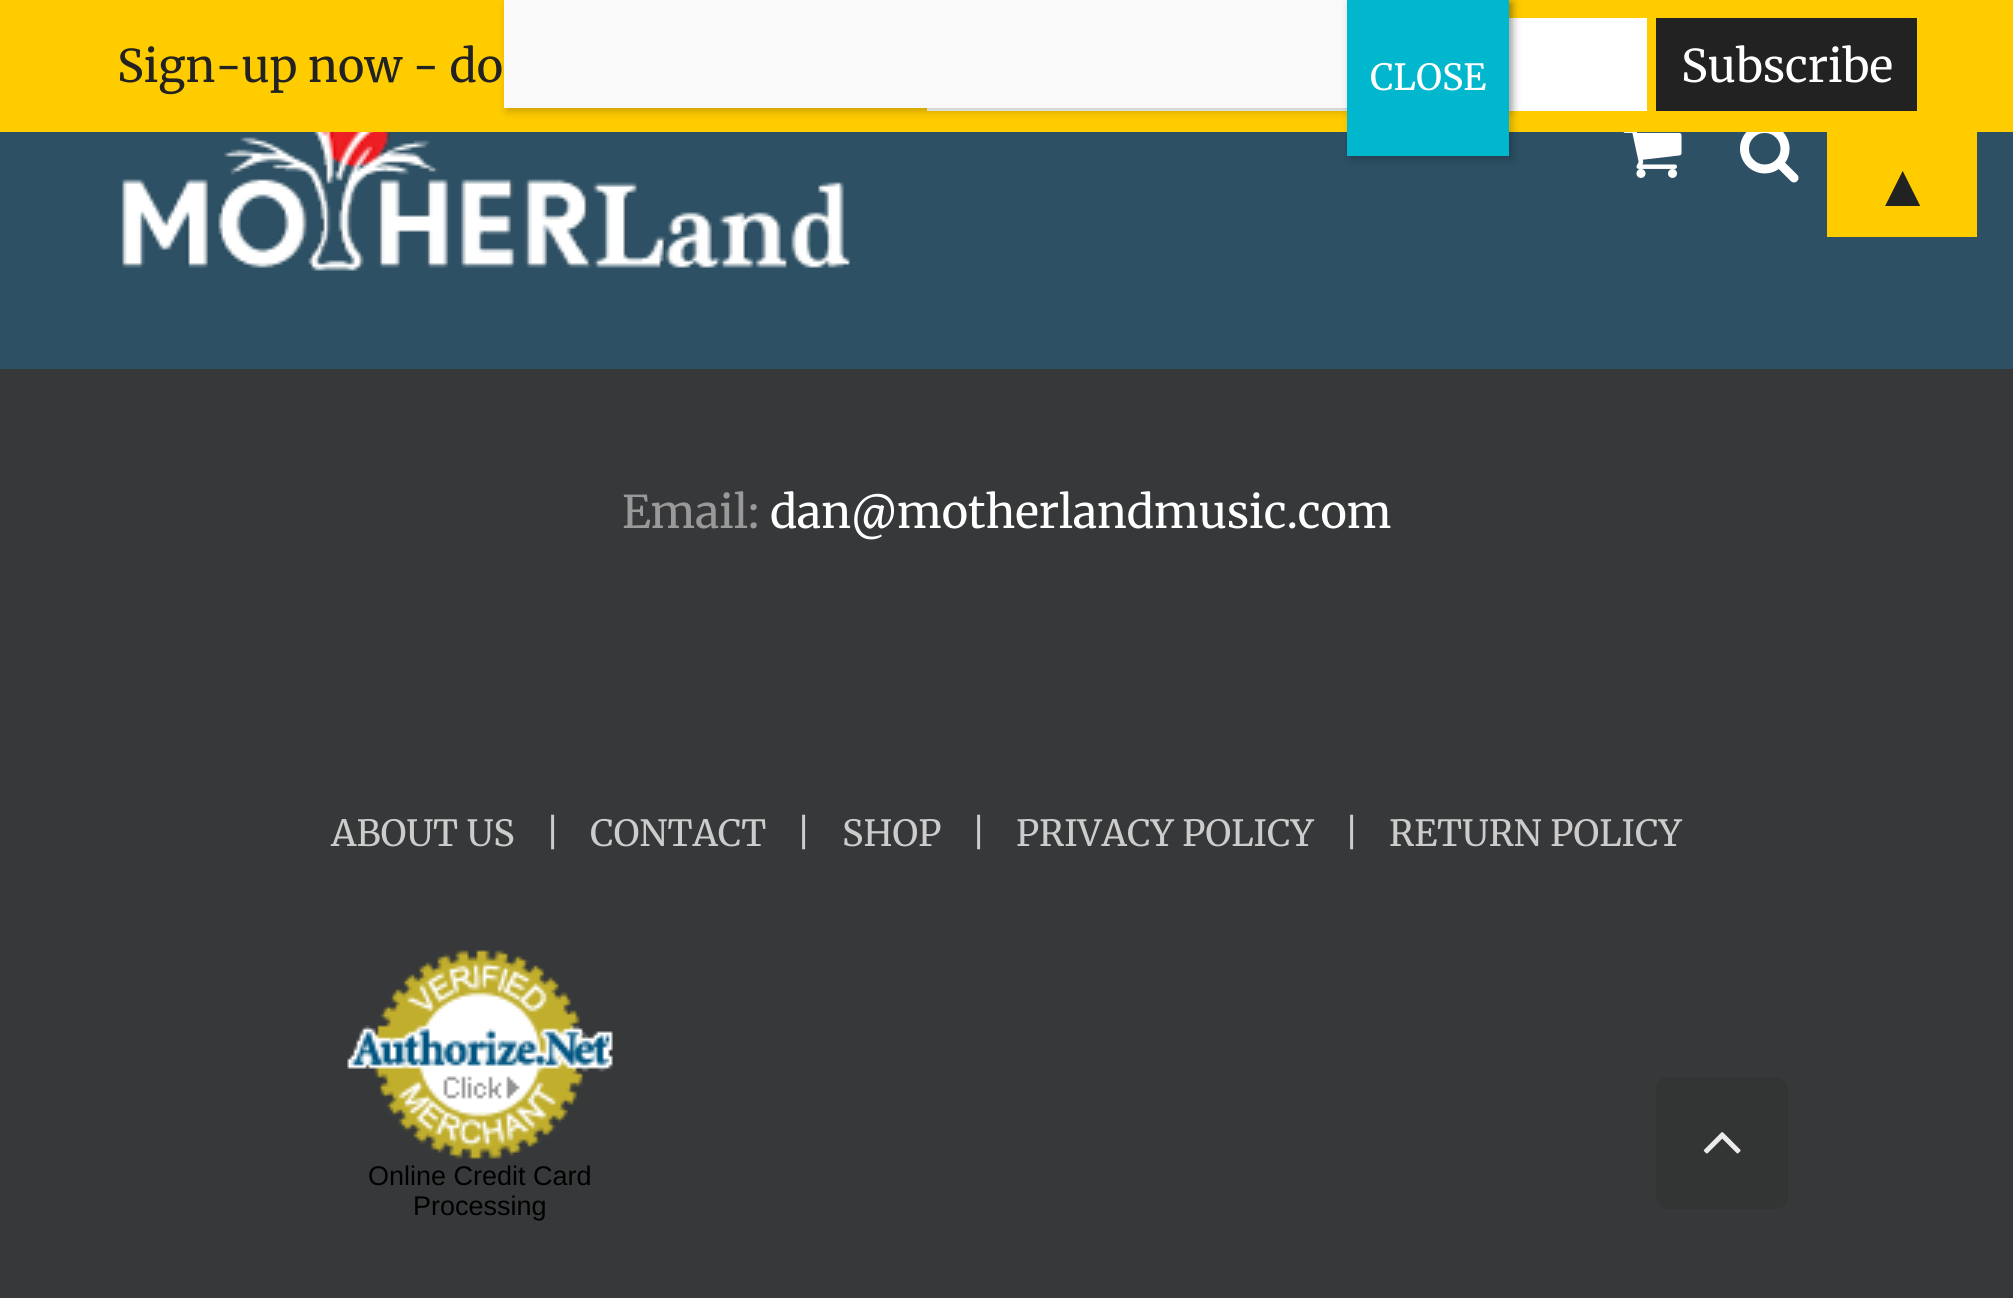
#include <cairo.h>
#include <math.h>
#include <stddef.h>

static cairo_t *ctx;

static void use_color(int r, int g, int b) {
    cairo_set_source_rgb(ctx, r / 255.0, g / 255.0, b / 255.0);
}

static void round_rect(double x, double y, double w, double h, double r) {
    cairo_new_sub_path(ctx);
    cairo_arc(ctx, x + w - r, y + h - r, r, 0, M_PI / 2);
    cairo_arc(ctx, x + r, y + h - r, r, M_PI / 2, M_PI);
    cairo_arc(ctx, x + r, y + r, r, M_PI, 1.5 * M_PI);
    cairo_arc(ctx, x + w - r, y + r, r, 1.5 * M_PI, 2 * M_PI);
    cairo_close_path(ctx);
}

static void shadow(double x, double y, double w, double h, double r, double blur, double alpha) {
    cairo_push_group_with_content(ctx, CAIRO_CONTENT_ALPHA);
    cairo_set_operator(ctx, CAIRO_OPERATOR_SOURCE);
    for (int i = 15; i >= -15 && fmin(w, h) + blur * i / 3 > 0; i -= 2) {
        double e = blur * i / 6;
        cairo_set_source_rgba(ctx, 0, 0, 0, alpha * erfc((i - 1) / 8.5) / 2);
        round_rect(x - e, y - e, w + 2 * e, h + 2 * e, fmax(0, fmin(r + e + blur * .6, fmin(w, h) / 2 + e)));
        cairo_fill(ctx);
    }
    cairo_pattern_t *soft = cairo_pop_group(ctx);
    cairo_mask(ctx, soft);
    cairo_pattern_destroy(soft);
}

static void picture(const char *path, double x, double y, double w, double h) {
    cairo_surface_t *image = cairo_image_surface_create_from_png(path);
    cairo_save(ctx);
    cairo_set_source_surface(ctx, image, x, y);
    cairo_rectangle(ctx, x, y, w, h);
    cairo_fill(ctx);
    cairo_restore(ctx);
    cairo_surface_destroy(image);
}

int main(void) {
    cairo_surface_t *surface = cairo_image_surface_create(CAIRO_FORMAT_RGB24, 2013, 1298);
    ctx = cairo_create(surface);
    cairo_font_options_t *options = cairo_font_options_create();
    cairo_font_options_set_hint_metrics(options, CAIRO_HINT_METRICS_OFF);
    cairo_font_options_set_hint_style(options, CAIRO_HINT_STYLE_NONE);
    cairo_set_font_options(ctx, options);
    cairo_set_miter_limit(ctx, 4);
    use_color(54, 56, 57);
    cairo_paint(ctx);
    use_color(255, 204, 0);
    cairo_rectangle(ctx, 0, 0, 2013, 132);
    cairo_fill(ctx);
    cairo_select_font_face(ctx, "Merriweather", CAIRO_FONT_SLANT_NORMAL, CAIRO_FONT_WEIGHT_NORMAL);
    cairo_set_font_size(ctx, 45);
    use_color(34, 34, 34);
    cairo_move_to(ctx, 117, 82);
    cairo_show_text(ctx, "Sign-up now - do");
    use_color(255, 255, 255);
    cairo_rectangle(ctx, 927, 18, 720, 93);
    cairo_fill(ctx);
    use_color(34, 34, 34);
    cairo_rectangle(ctx, 1656, 18, 261, 93);
    cairo_fill(ctx);
    use_color(255, 255, 255);
    cairo_move_to(ctx, 1681, 82);
    cairo_show_text(ctx, "Subscribe");
    use_color(45, 80, 100);
    cairo_rectangle(ctx, 0, 132, 2013, 237);
    cairo_fill(ctx);
    use_color(255, 204, 0);
    cairo_rectangle(ctx, 1827, 132, 150, 105);
    cairo_fill(ctx);
    cairo_select_font_face(ctx, "Liberation Sans", CAIRO_FONT_SLANT_NORMAL, CAIRO_FONT_WEIGHT_NORMAL);
    cairo_set_font_size(ctx, 60);
    use_color(34, 34, 34);
    cairo_move_to(ctx, 1873, 206);
    cairo_show_text(ctx, "▲");
    use_color(2, 2, 2);
    shadow(507, 3, 1005, 108, 0, 4.5, 0.23);
    use_color(249, 249, 249);
    cairo_rectangle(ctx, 504, 0, 843, 108);
    cairo_fill(ctx);
    use_color(2, 2, 2);
    shadow(1350, 3, 162, 156, 0, 4.5, 0.23);
    use_color(0, 183, 205);
    cairo_rectangle(ctx, 1347, 0, 162, 156);
    cairo_fill(ctx);
    cairo_select_font_face(ctx, "Merriweather", CAIRO_FONT_SLANT_NORMAL, CAIRO_FONT_WEIGHT_NORMAL);
    cairo_set_font_size(ctx, 36);
    use_color(255, 255, 255);
    cairo_move_to(ctx, 1370, 90);
    cairo_show_text(ctx, "CLOSE");
    picture("img1.png", 122, 132, 728, 139);
    picture("img2.png", 1623, 132, 59, 46);
    picture("img3.png", 1740, 132, 59, 51);
    cairo_set_font_size(ctx, 45);
    use_color(153, 153, 153);
    cairo_move_to(ctx, 622, 528);
    cairo_show_text(ctx, "Email:");
    use_color(255, 255, 255);
    cairo_move_to(ctx, 770, 528);
    cairo_show_text(ctx, "dan@motherlandmusic.com");
    cairo_set_font_size(ctx, 36);
    use_color(204, 204, 204);
    cairo_move_to(ctx, 331, 846);
    cairo_show_text(ctx, "ABOUT US");
    cairo_move_to(ctx, 545, 846);
    cairo_show_text(ctx, "|");
    cairo_move_to(ctx, 590, 846);
    cairo_show_text(ctx, "CONTACT");
    cairo_move_to(ctx, 796, 846);
    cairo_show_text(ctx, "|");
    cairo_move_to(ctx, 842, 846);
    cairo_show_text(ctx, "SHOP");
    cairo_move_to(ctx, 971, 846);
    cairo_show_text(ctx, "|");
    cairo_move_to(ctx, 1016, 846);
    cairo_show_text(ctx, "PRIVACY POLICY");
    cairo_move_to(ctx, 1344, 846);
    cairo_show_text(ctx, "|");
    cairo_move_to(ctx, 1389, 846);
    cairo_show_text(ctx, "RETURN POLICY");
    picture("img4.png", 347, 950, 266, 209);
    cairo_select_font_face(ctx, "Liberation Sans", CAIRO_FONT_SLANT_NORMAL, CAIRO_FONT_WEIGHT_NORMAL);
    cairo_set_font_size(ctx, 27);
    use_color(0, 0, 0);
    cairo_move_to(ctx, 368, 1185);
    cairo_show_text(ctx, "Online Credit Card");
    cairo_move_to(ctx, 413, 1215);
    cairo_show_text(ctx, "Processing");
    use_color(51, 52, 52);
    round_rect(1656, 1077, 132, 132, 12);
    cairo_fill(ctx);
    picture("img5.png", 1703, 1132, 38, 22);
    cairo_surface_write_to_png(surface, "result.png");
    cairo_font_options_destroy(options);
    cairo_destroy(ctx);
    cairo_surface_destroy(surface);
    return 0;
}
